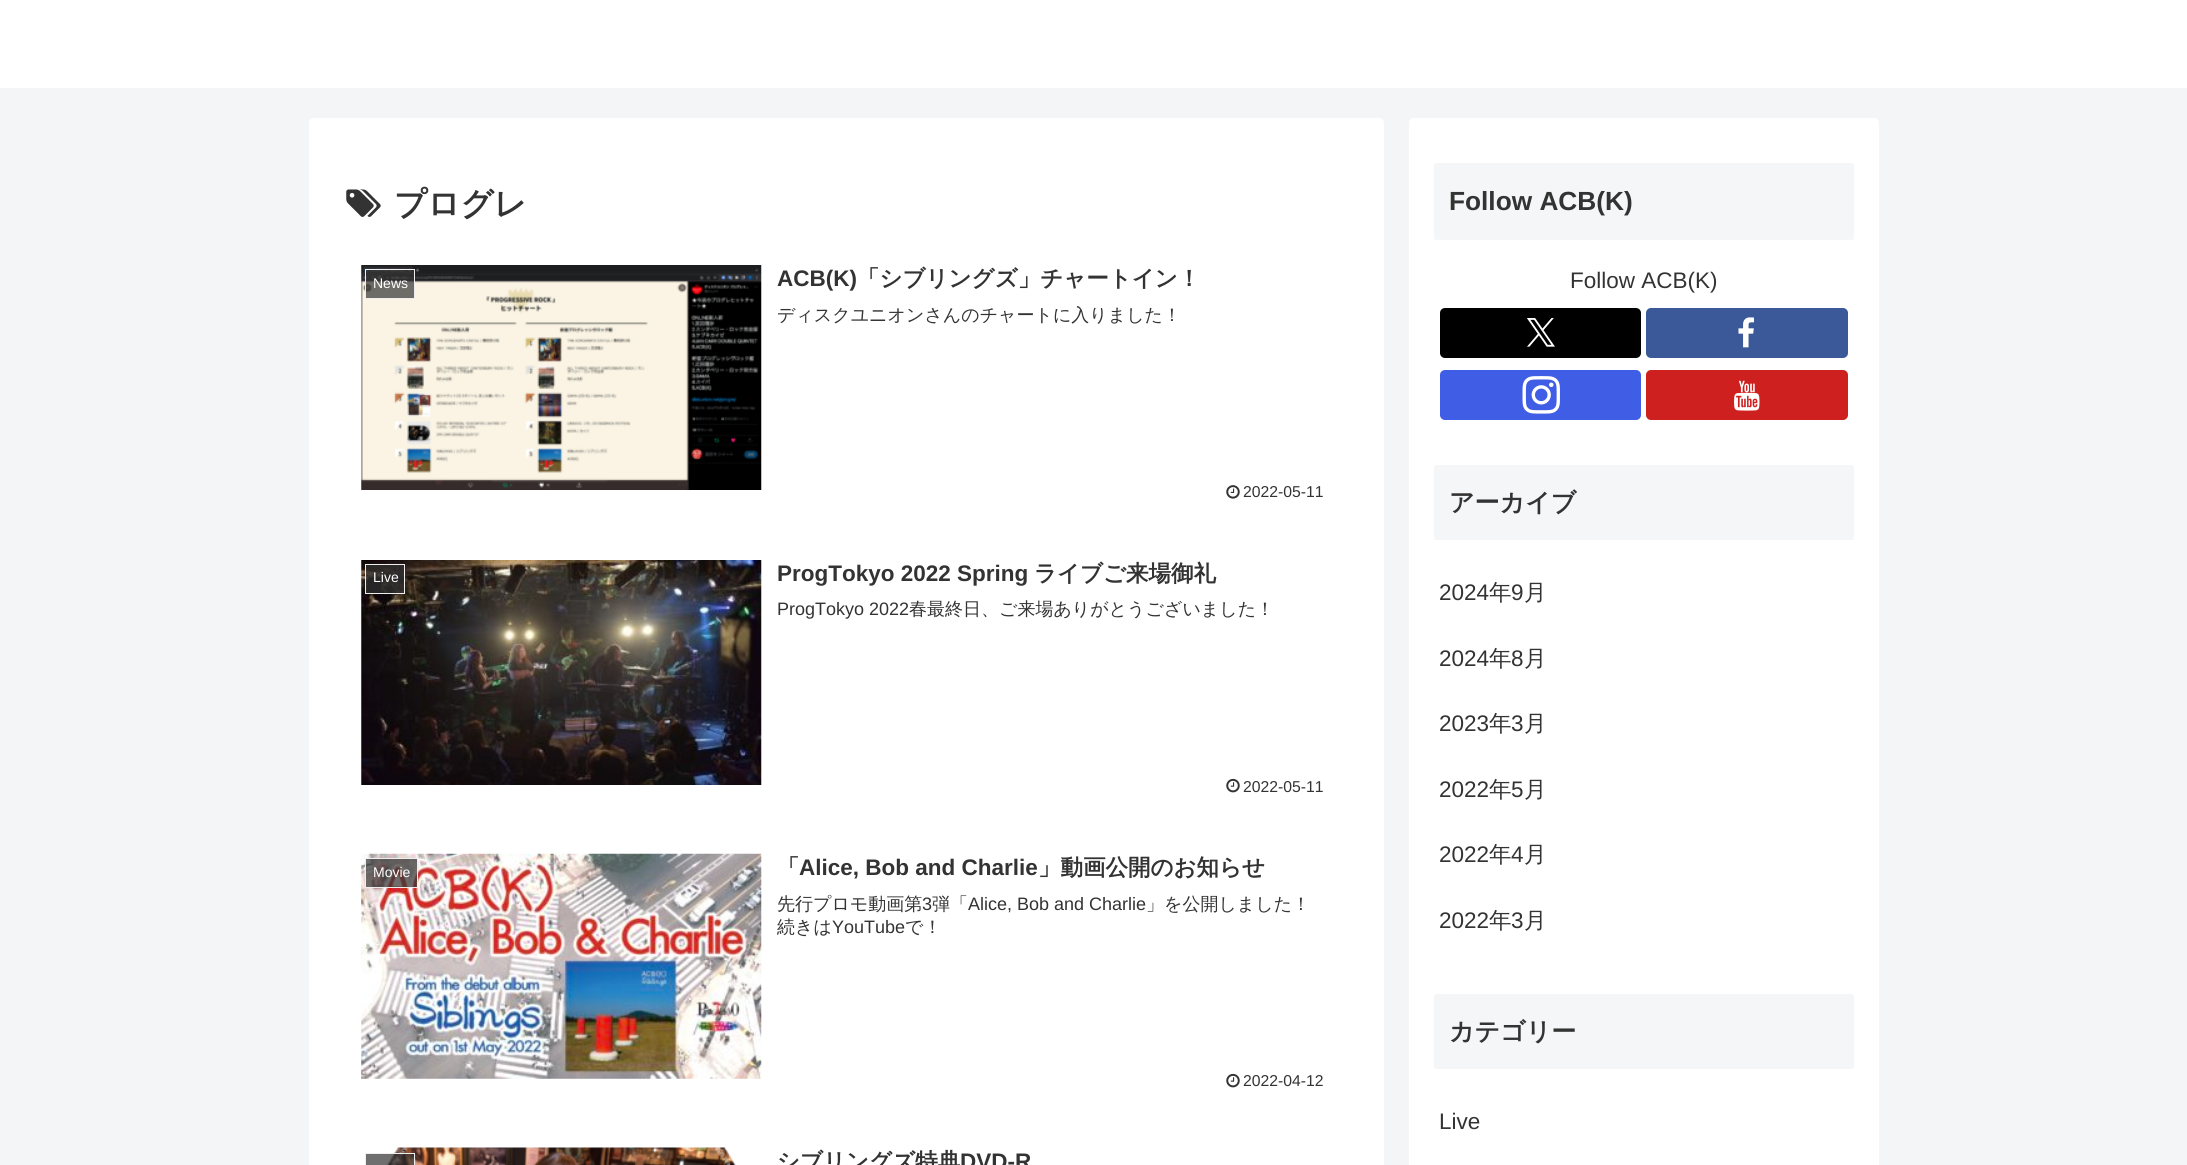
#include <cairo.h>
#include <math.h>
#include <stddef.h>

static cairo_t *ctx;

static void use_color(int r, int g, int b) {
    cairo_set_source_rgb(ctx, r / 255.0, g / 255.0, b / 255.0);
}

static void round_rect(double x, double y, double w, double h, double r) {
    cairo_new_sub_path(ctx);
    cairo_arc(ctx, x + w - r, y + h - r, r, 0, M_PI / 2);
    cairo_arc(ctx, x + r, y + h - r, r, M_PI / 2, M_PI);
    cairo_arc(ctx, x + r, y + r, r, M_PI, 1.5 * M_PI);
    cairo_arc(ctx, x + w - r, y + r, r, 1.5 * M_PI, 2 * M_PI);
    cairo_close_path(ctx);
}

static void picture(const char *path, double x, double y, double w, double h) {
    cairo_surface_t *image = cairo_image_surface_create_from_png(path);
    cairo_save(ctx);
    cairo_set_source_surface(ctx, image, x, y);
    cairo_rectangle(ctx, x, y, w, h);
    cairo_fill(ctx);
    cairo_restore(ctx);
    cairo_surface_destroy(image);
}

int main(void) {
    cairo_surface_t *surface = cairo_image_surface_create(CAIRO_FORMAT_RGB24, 2187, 1165);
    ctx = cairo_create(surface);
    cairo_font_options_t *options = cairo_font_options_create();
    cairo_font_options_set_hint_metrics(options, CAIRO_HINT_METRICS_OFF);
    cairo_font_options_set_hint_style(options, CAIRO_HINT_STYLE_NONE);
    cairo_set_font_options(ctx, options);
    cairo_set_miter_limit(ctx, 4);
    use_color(244, 245, 247);
    cairo_paint(ctx);
    use_color(255, 255, 255);
    cairo_rectangle(ctx, 0, 0, 2187, 88);
    cairo_fill(ctx);
    round_rect(309, 118, 1075, 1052, 5);
    cairo_fill(ctx);
    picture("img1.png", 346, 189, 35, 28);
    cairo_select_font_face(ctx, "WenQuanYi Zen Hei", CAIRO_FONT_SLANT_NORMAL, CAIRO_FONT_WEIGHT_BOLD);
    cairo_set_font_size(ctx, 32.5);
    use_color(51, 51, 51);
    cairo_move_to(ctx, 394, 215);
    cairo_show_text(ctx, "プログレ");
    picture("img2.png", 361, 265, 401, 225);
    cairo_set_source_rgba(ctx, 0.2, 0.2, 0.2, 0.7);
    cairo_rectangle(ctx, 365.5, 269.5, 49, 29);
    cairo_fill_preserve(ctx);
    use_color(238, 238, 238);
    cairo_set_line_width(ctx, 1);
    cairo_stroke(ctx);
    cairo_select_font_face(ctx, "Liberation Sans", CAIRO_FONT_SLANT_NORMAL, CAIRO_FONT_WEIGHT_NORMAL);
    cairo_set_font_size(ctx, 14);
    use_color(255, 255, 255);
    cairo_move_to(ctx, 373, 288);
    cairo_show_text(ctx, "News");
    cairo_select_font_face(ctx, "Liberation Sans", CAIRO_FONT_SLANT_NORMAL, CAIRO_FONT_WEIGHT_BOLD);
    cairo_set_font_size(ctx, 22.5);
    use_color(51, 51, 51);
    cairo_move_to(ctx, 777, 286);
    cairo_show_text(ctx, "ACB(K)");
    cairo_select_font_face(ctx, "WenQuanYi Zen Hei", CAIRO_FONT_SLANT_NORMAL, CAIRO_FONT_WEIGHT_BOLD);
    cairo_move_to(ctx, 857, 286);
    cairo_show_text(ctx, "「シブリングズ」チャートイン！");
    cairo_select_font_face(ctx, "WenQuanYi Zen Hei Medium", CAIRO_FONT_SLANT_NORMAL, CAIRO_FONT_WEIGHT_NORMAL);
    cairo_set_font_size(ctx, 18);
    cairo_move_to(ctx, 777, 321);
    cairo_show_text(ctx, "ディスクユニオンさんのチャートに入りました！");
    picture("img3.png", 1226, 485, 14, 14);
    cairo_select_font_face(ctx, "Liberation Sans", CAIRO_FONT_SLANT_NORMAL, CAIRO_FONT_WEIGHT_NORMAL);
    cairo_set_font_size(ctx, 15.75);
    cairo_move_to(ctx, 1243, 497);
    cairo_show_text(ctx, "2022-05-11");
    picture("img4.png", 361, 560, 401, 225);
    cairo_set_source_rgba(ctx, 0.2, 0.2, 0.2, 0.7);
    cairo_rectangle(ctx, 365.5, 564.5, 39, 29);
    cairo_fill_preserve(ctx);
    use_color(238, 238, 238);
    cairo_stroke(ctx);
    cairo_set_font_size(ctx, 14);
    use_color(255, 255, 255);
    cairo_move_to(ctx, 373, 582);
    cairo_show_text(ctx, "Live");
    cairo_select_font_face(ctx, "Liberation Sans", CAIRO_FONT_SLANT_NORMAL, CAIRO_FONT_WEIGHT_BOLD);
    cairo_set_font_size(ctx, 22.5);
    use_color(51, 51, 51);
    cairo_move_to(ctx, 777, 581);
    cairo_show_text(ctx, "ProgTokyo 2022 Spring");
    cairo_select_font_face(ctx, "WenQuanYi Zen Hei", CAIRO_FONT_SLANT_NORMAL, CAIRO_FONT_WEIGHT_BOLD);
    cairo_move_to(ctx, 1034, 581);
    cairo_show_text(ctx, "ライブご来場御礼");
    cairo_select_font_face(ctx, "Liberation Sans", CAIRO_FONT_SLANT_NORMAL, CAIRO_FONT_WEIGHT_NORMAL);
    cairo_set_font_size(ctx, 18);
    cairo_move_to(ctx, 777, 615);
    cairo_show_text(ctx, "ProgTokyo 2022");
    cairo_select_font_face(ctx, "WenQuanYi Zen Hei Medium", CAIRO_FONT_SLANT_NORMAL, CAIRO_FONT_WEIGHT_NORMAL);
    cairo_move_to(ctx, 909, 615);
    cairo_show_text(ctx, "春最終日、ご来場ありがとうございました！");
    picture("img5.png", 1226, 778, 14, 15);
    cairo_select_font_face(ctx, "Liberation Sans", CAIRO_FONT_SLANT_NORMAL, CAIRO_FONT_WEIGHT_NORMAL);
    cairo_set_font_size(ctx, 15.75);
    cairo_move_to(ctx, 1243, 792);
    cairo_show_text(ctx, "2022-05-11");
    picture("img6.png", 361, 853, 401, 226);
    cairo_set_source_rgba(ctx, 0.2, 0.2, 0.2, 0.7);
    cairo_rectangle(ctx, 365.5, 858.5, 52, 29);
    cairo_fill_preserve(ctx);
    use_color(238, 238, 238);
    cairo_stroke(ctx);
    cairo_set_font_size(ctx, 14);
    use_color(255, 255, 255);
    cairo_move_to(ctx, 373, 877);
    cairo_show_text(ctx, "Movie");
    cairo_select_font_face(ctx, "WenQuanYi Zen Hei", CAIRO_FONT_SLANT_NORMAL, CAIRO_FONT_WEIGHT_BOLD);
    cairo_set_font_size(ctx, 22.5);
    use_color(51, 51, 51);
    cairo_move_to(ctx, 777, 875);
    cairo_show_text(ctx, "「");
    cairo_select_font_face(ctx, "Liberation Sans", CAIRO_FONT_SLANT_NORMAL, CAIRO_FONT_WEIGHT_BOLD);
    cairo_move_to(ctx, 799, 875);
    cairo_show_text(ctx, "Alice, Bob and Charlie");
    cairo_select_font_face(ctx, "WenQuanYi Zen Hei", CAIRO_FONT_SLANT_NORMAL, CAIRO_FONT_WEIGHT_BOLD);
    cairo_move_to(ctx, 1038, 875);
    cairo_show_text(ctx, "」動画公開のお知らせ");
    cairo_select_font_face(ctx, "WenQuanYi Zen Hei Medium", CAIRO_FONT_SLANT_NORMAL, CAIRO_FONT_WEIGHT_NORMAL);
    cairo_set_font_size(ctx, 18);
    cairo_move_to(ctx, 777, 910);
    cairo_show_text(ctx, "先行プロモ動画第");
    cairo_select_font_face(ctx, "Liberation Sans", CAIRO_FONT_SLANT_NORMAL, CAIRO_FONT_WEIGHT_NORMAL);
    cairo_move_to(ctx, 922, 910);
    cairo_show_text(ctx, "3");
    cairo_select_font_face(ctx, "WenQuanYi Zen Hei Medium", CAIRO_FONT_SLANT_NORMAL, CAIRO_FONT_WEIGHT_NORMAL);
    cairo_move_to(ctx, 932, 910);
    cairo_show_text(ctx, "弾「");
    cairo_select_font_face(ctx, "Liberation Sans", CAIRO_FONT_SLANT_NORMAL, CAIRO_FONT_WEIGHT_NORMAL);
    cairo_move_to(ctx, 968, 910);
    cairo_show_text(ctx, "Alice, Bob and Charlie");
    cairo_select_font_face(ctx, "WenQuanYi Zen Hei Medium", CAIRO_FONT_SLANT_NORMAL, CAIRO_FONT_WEIGHT_NORMAL);
    cairo_move_to(ctx, 1146, 910);
    cairo_show_text(ctx, "」を公開しました！");
    cairo_move_to(ctx, 777, 933);
    cairo_show_text(ctx, "続きは");
    cairo_select_font_face(ctx, "Liberation Sans", CAIRO_FONT_SLANT_NORMAL, CAIRO_FONT_WEIGHT_NORMAL);
    cairo_move_to(ctx, 832, 933);
    cairo_show_text(ctx, "YouTube");
    cairo_select_font_face(ctx, "WenQuanYi Zen Hei Medium", CAIRO_FONT_SLANT_NORMAL, CAIRO_FONT_WEIGHT_NORMAL);
    cairo_move_to(ctx, 905, 933);
    cairo_show_text(ctx, "で！");
    picture("img5.png", 1226, 1073, 14, 15);
    cairo_select_font_face(ctx, "Liberation Sans", CAIRO_FONT_SLANT_NORMAL, CAIRO_FONT_WEIGHT_NORMAL);
    cairo_set_font_size(ctx, 15.75);
    cairo_move_to(ctx, 1243, 1086);
    cairo_show_text(ctx, "2022-04-12");
    picture("img7.png", 387, 1147, 349, 18);
    cairo_set_source_rgba(ctx, 0.2, 0.2, 0.2, 0.7);
    cairo_rectangle(ctx, 365.5, 1153.5, 49, 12);
    cairo_fill_preserve(ctx);
    use_color(238, 238, 238);
    cairo_stroke(ctx);
    cairo_select_font_face(ctx, "WenQuanYi Zen Hei", CAIRO_FONT_SLANT_NORMAL, CAIRO_FONT_WEIGHT_BOLD);
    cairo_set_font_size(ctx, 22.5);
    use_color(51, 51, 51);
    cairo_move_to(ctx, 777, 1169);
    cairo_show_text(ctx, "シブリングズ特典");
    cairo_select_font_face(ctx, "Liberation Sans", CAIRO_FONT_SLANT_NORMAL, CAIRO_FONT_WEIGHT_BOLD);
    cairo_move_to(ctx, 960, 1169);
    cairo_show_text(ctx, "DVD-R");
    use_color(255, 255, 255);
    round_rect(1409, 118, 470, 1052, 5);
    cairo_fill(ctx);
    use_color(245, 246, 247);
    round_rect(1434, 163, 420, 77, 2.5);
    cairo_fill(ctx);
    cairo_set_font_size(ctx, 26.25);
    use_color(51, 51, 51);
    cairo_move_to(ctx, 1449, 210);
    cairo_show_text(ctx, "Follow ACB(K)");
    cairo_select_font_face(ctx, "Liberation Sans", CAIRO_FONT_SLANT_NORMAL, CAIRO_FONT_WEIGHT_NORMAL);
    cairo_set_font_size(ctx, 22.5);
    cairo_move_to(ctx, 1570, 288);
    cairo_show_text(ctx, "Follow ACB(K)");
    use_color(0, 0, 0);
    round_rect(1440, 308, 201, 50, 5);
    cairo_fill(ctx);
    picture("img8.png", 1527, 318, 28, 29);
    use_color(59, 89, 152);
    round_rect(1646, 308, 202, 50, 5);
    cairo_fill(ctx);
    picture("img9.png", 1738, 317, 16, 31);
    use_color(64, 93, 230);
    round_rect(1440, 370, 201, 50, 5);
    cairo_fill(ctx);
    picture("img10.png", 1522, 376, 38, 38);
    use_color(205, 32, 31);
    round_rect(1646, 370, 202, 50, 5);
    cairo_fill(ctx);
    picture("img11.png", 1734, 380, 26, 31);
    use_color(245, 246, 247);
    round_rect(1434, 465, 420, 75, 2.5);
    cairo_fill(ctx);
    cairo_select_font_face(ctx, "WenQuanYi Zen Hei", CAIRO_FONT_SLANT_NORMAL, CAIRO_FONT_WEIGHT_BOLD);
    cairo_set_font_size(ctx, 25);
    use_color(51, 51, 51);
    cairo_move_to(ctx, 1449, 511);
    cairo_show_text(ctx, "アーカイブ");
    cairo_select_font_face(ctx, "Liberation Sans", CAIRO_FONT_SLANT_NORMAL, CAIRO_FONT_WEIGHT_NORMAL);
    cairo_set_font_size(ctx, 22.5);
    cairo_move_to(ctx, 1439, 600);
    cairo_show_text(ctx, "2024");
    cairo_select_font_face(ctx, "WenQuanYi Zen Hei Medium", CAIRO_FONT_SLANT_NORMAL, CAIRO_FONT_WEIGHT_NORMAL);
    cairo_move_to(ctx, 1489, 600);
    cairo_show_text(ctx, "年");
    cairo_select_font_face(ctx, "Liberation Sans", CAIRO_FONT_SLANT_NORMAL, CAIRO_FONT_WEIGHT_NORMAL);
    cairo_move_to(ctx, 1511, 600);
    cairo_show_text(ctx, "9");
    cairo_select_font_face(ctx, "WenQuanYi Zen Hei Medium", CAIRO_FONT_SLANT_NORMAL, CAIRO_FONT_WEIGHT_NORMAL);
    cairo_move_to(ctx, 1524, 600);
    cairo_show_text(ctx, "月");
    cairo_select_font_face(ctx, "Liberation Sans", CAIRO_FONT_SLANT_NORMAL, CAIRO_FONT_WEIGHT_NORMAL);
    cairo_move_to(ctx, 1439, 666);
    cairo_show_text(ctx, "2024");
    cairo_select_font_face(ctx, "WenQuanYi Zen Hei Medium", CAIRO_FONT_SLANT_NORMAL, CAIRO_FONT_WEIGHT_NORMAL);
    cairo_move_to(ctx, 1489, 666);
    cairo_show_text(ctx, "年");
    cairo_select_font_face(ctx, "Liberation Sans", CAIRO_FONT_SLANT_NORMAL, CAIRO_FONT_WEIGHT_NORMAL);
    cairo_move_to(ctx, 1511, 666);
    cairo_show_text(ctx, "8");
    cairo_select_font_face(ctx, "WenQuanYi Zen Hei Medium", CAIRO_FONT_SLANT_NORMAL, CAIRO_FONT_WEIGHT_NORMAL);
    cairo_move_to(ctx, 1524, 666);
    cairo_show_text(ctx, "月");
    cairo_select_font_face(ctx, "Liberation Sans", CAIRO_FONT_SLANT_NORMAL, CAIRO_FONT_WEIGHT_NORMAL);
    cairo_move_to(ctx, 1439, 731);
    cairo_show_text(ctx, "2023");
    cairo_select_font_face(ctx, "WenQuanYi Zen Hei Medium", CAIRO_FONT_SLANT_NORMAL, CAIRO_FONT_WEIGHT_NORMAL);
    cairo_move_to(ctx, 1489, 731);
    cairo_show_text(ctx, "年");
    cairo_select_font_face(ctx, "Liberation Sans", CAIRO_FONT_SLANT_NORMAL, CAIRO_FONT_WEIGHT_NORMAL);
    cairo_move_to(ctx, 1511, 731);
    cairo_show_text(ctx, "3");
    cairo_select_font_face(ctx, "WenQuanYi Zen Hei Medium", CAIRO_FONT_SLANT_NORMAL, CAIRO_FONT_WEIGHT_NORMAL);
    cairo_move_to(ctx, 1524, 731);
    cairo_show_text(ctx, "月");
    cairo_select_font_face(ctx, "Liberation Sans", CAIRO_FONT_SLANT_NORMAL, CAIRO_FONT_WEIGHT_NORMAL);
    cairo_move_to(ctx, 1439, 797);
    cairo_show_text(ctx, "2022");
    cairo_select_font_face(ctx, "WenQuanYi Zen Hei Medium", CAIRO_FONT_SLANT_NORMAL, CAIRO_FONT_WEIGHT_NORMAL);
    cairo_move_to(ctx, 1489, 797);
    cairo_show_text(ctx, "年");
    cairo_select_font_face(ctx, "Liberation Sans", CAIRO_FONT_SLANT_NORMAL, CAIRO_FONT_WEIGHT_NORMAL);
    cairo_move_to(ctx, 1511, 797);
    cairo_show_text(ctx, "5");
    cairo_select_font_face(ctx, "WenQuanYi Zen Hei Medium", CAIRO_FONT_SLANT_NORMAL, CAIRO_FONT_WEIGHT_NORMAL);
    cairo_move_to(ctx, 1524, 797);
    cairo_show_text(ctx, "月");
    cairo_select_font_face(ctx, "Liberation Sans", CAIRO_FONT_SLANT_NORMAL, CAIRO_FONT_WEIGHT_NORMAL);
    cairo_move_to(ctx, 1439, 862);
    cairo_show_text(ctx, "2022");
    cairo_select_font_face(ctx, "WenQuanYi Zen Hei Medium", CAIRO_FONT_SLANT_NORMAL, CAIRO_FONT_WEIGHT_NORMAL);
    cairo_move_to(ctx, 1489, 862);
    cairo_show_text(ctx, "年");
    cairo_select_font_face(ctx, "Liberation Sans", CAIRO_FONT_SLANT_NORMAL, CAIRO_FONT_WEIGHT_NORMAL);
    cairo_move_to(ctx, 1511, 862);
    cairo_show_text(ctx, "4");
    cairo_select_font_face(ctx, "WenQuanYi Zen Hei Medium", CAIRO_FONT_SLANT_NORMAL, CAIRO_FONT_WEIGHT_NORMAL);
    cairo_move_to(ctx, 1524, 862);
    cairo_show_text(ctx, "月");
    cairo_select_font_face(ctx, "Liberation Sans", CAIRO_FONT_SLANT_NORMAL, CAIRO_FONT_WEIGHT_NORMAL);
    cairo_move_to(ctx, 1439, 928);
    cairo_show_text(ctx, "2022");
    cairo_select_font_face(ctx, "WenQuanYi Zen Hei Medium", CAIRO_FONT_SLANT_NORMAL, CAIRO_FONT_WEIGHT_NORMAL);
    cairo_move_to(ctx, 1489, 928);
    cairo_show_text(ctx, "年");
    cairo_select_font_face(ctx, "Liberation Sans", CAIRO_FONT_SLANT_NORMAL, CAIRO_FONT_WEIGHT_NORMAL);
    cairo_move_to(ctx, 1511, 928);
    cairo_show_text(ctx, "3");
    cairo_select_font_face(ctx, "WenQuanYi Zen Hei Medium", CAIRO_FONT_SLANT_NORMAL, CAIRO_FONT_WEIGHT_NORMAL);
    cairo_move_to(ctx, 1524, 928);
    cairo_show_text(ctx, "月");
    use_color(245, 246, 247);
    round_rect(1434, 994, 420, 75, 2.5);
    cairo_fill(ctx);
    cairo_select_font_face(ctx, "WenQuanYi Zen Hei", CAIRO_FONT_SLANT_NORMAL, CAIRO_FONT_WEIGHT_BOLD);
    cairo_set_font_size(ctx, 25);
    use_color(51, 51, 51);
    cairo_move_to(ctx, 1449, 1040);
    cairo_show_text(ctx, "カテゴリー");
    cairo_select_font_face(ctx, "Liberation Sans", CAIRO_FONT_SLANT_NORMAL, CAIRO_FONT_WEIGHT_NORMAL);
    cairo_set_font_size(ctx, 22.5);
    cairo_move_to(ctx, 1439, 1129);
    cairo_show_text(ctx, "Live");
    cairo_surface_write_to_png(surface, "result.png");
    cairo_font_options_destroy(options);
    cairo_destroy(ctx);
    cairo_surface_destroy(surface);
    return 0;
}
